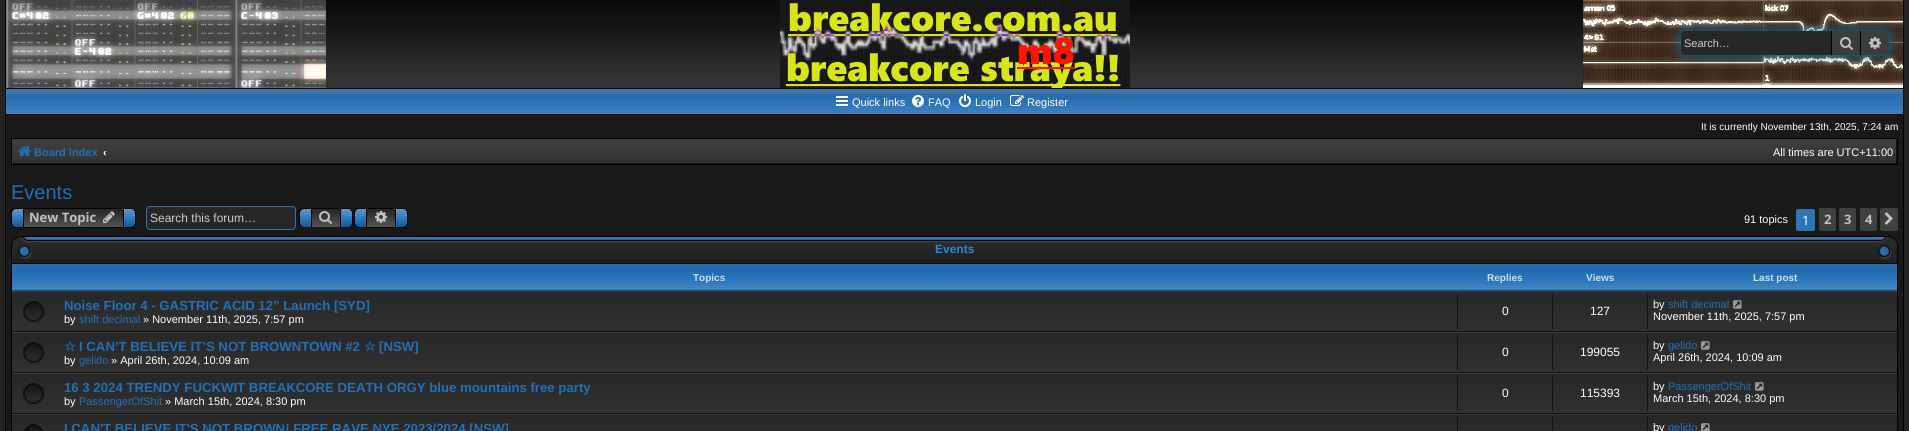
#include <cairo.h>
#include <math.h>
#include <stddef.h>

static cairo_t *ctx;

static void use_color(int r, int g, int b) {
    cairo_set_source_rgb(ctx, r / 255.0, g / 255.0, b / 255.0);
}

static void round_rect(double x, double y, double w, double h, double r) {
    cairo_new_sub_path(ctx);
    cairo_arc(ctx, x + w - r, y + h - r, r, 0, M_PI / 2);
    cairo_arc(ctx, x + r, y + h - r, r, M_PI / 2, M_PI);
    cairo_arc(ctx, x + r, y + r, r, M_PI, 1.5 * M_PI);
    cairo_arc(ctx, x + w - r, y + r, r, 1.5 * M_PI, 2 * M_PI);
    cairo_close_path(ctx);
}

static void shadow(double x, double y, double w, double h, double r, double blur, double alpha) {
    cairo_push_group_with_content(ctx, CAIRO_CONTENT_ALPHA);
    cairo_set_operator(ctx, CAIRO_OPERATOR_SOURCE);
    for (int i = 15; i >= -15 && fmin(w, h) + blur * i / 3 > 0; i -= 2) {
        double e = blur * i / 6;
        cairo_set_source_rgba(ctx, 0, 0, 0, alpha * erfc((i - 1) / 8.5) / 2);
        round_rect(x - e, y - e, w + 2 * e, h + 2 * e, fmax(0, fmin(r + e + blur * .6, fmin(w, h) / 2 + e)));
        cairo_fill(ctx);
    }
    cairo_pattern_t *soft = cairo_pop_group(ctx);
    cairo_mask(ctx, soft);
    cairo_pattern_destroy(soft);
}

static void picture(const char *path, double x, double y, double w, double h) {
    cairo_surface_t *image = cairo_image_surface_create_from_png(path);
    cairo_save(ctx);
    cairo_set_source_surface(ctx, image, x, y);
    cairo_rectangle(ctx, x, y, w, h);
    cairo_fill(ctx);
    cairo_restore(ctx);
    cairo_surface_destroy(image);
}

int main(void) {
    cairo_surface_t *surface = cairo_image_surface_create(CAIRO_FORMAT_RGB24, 1909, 431);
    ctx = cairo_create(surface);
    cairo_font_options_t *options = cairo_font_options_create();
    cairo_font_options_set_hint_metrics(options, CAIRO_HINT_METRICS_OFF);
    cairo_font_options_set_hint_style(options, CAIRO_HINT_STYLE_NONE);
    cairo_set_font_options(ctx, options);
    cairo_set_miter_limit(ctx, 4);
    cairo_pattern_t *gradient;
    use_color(36, 36, 36);
    cairo_paint(ctx);
    use_color(25, 25, 25);
    cairo_rectangle(ctx, 6, 115, 1897, 316);
    cairo_fill(ctx);
    use_color(0, 0, 0);
    cairo_rectangle(ctx, 1903, 0, 1, 431);
    cairo_fill(ctx);
    cairo_rectangle(ctx, 5, 0, 1, 431);
    cairo_fill(ctx);
    picture("img1.png", 6, 0, 1897, 88);
    picture("img2.png", 780, 0, 350, 88);
    use_color(0, 117, 176);
    shadow(1681, 31, 208, 24, 4, 5, 1);
    use_color(39, 39, 39);
    cairo_new_path(ctx);
    cairo_move_to(ctx, 1685, 31);
    cairo_line_to(ctx, 1831, 31);
    cairo_line_to(ctx, 1831, 55);
    cairo_line_to(ctx, 1685, 55);
    cairo_curve_to(ctx, 1683, 55, 1681, 53, 1681, 51);
    cairo_line_to(ctx, 1681, 35);
    cairo_curve_to(ctx, 1681, 33, 1683, 31, 1685, 31);
    cairo_close_path(ctx);
    cairo_fill(ctx);
    cairo_select_font_face(ctx, "Liberation Sans", CAIRO_FONT_SLANT_NORMAL, CAIRO_FONT_WEIGHT_NORMAL);
    cairo_set_font_size(ctx, 11);
    use_color(204, 204, 204);
    cairo_move_to(ctx, 1684, 47);
    cairo_show_text(ctx, "Search…");
    use_color(60, 60, 60);
    cairo_rectangle(ctx, 1832, 31, 28, 24);
    cairo_fill(ctx);
    use_color(0, 0, 0);
    cairo_rectangle(ctx, 1860, 31, 1, 24);
    cairo_fill(ctx);
    cairo_rectangle(ctx, 1831, 31, 1, 24);
    cairo_fill(ctx);
    picture("img3.png", 1840, 37, 13, 13);
    use_color(60, 60, 60);
    cairo_new_path(ctx);
    cairo_move_to(ctx, 1861, 31);
    cairo_line_to(ctx, 1885, 31);
    cairo_curve_to(ctx, 1887, 31, 1889, 33, 1889, 35);
    cairo_line_to(ctx, 1889, 51);
    cairo_curve_to(ctx, 1889, 53, 1887, 55, 1885, 55);
    cairo_line_to(ctx, 1861, 55);
    cairo_close_path(ctx);
    cairo_fill(ctx);
    picture("img4.png", 1869, 37, 12, 12);
    picture("img5.png", 6, 89, 1897, 25);
    use_color(0, 0, 0);
    cairo_rectangle(ctx, 6, 88, 1897, 1);
    cairo_fill(ctx);
    cairo_rectangle(ctx, 6, 114, 1897, 1);
    cairo_fill(ctx);
    picture("img6.png", 836, 96, 12, 10);
    use_color(255, 255, 255);
    cairo_move_to(ctx, 852, 106);
    cairo_show_text(ctx, "Quick links");
    picture("img7.png", 912, 95, 12, 12);
    cairo_move_to(ctx, 928, 106);
    cairo_show_text(ctx, "FAQ");
    picture("img8.png", 959, 94, 12, 13);
    cairo_move_to(ctx, 975, 106);
    cairo_show_text(ctx, "Login");
    picture("img9.png", 1010, 95, 14, 11);
    cairo_move_to(ctx, 1027, 106);
    cairo_show_text(ctx, "Register");
    cairo_set_font_size(ctx, 10);
    cairo_move_to(ctx, 1701, 130);
    cairo_show_text(ctx, "It is currently November 13th, 2025, 7:24 am");
    gradient = cairo_pattern_create_linear(955, 139, 955, 164);
    cairo_pattern_add_color_stop_rgba(gradient, 0, 0.251, 0.251, 0.251, 1);
    cairo_pattern_add_color_stop_rgba(gradient, 1, 0.192, 0.192, 0.192, 1);
    cairo_set_source(ctx, gradient);
    cairo_pattern_destroy(gradient);
    cairo_rectangle(ctx, 13, 140, 1883, 23);
    cairo_fill(ctx);
    cairo_save(ctx);
    cairo_rectangle(ctx, 12, 139, 1885, 25);
    cairo_clip(ctx);
    use_color(19, 19, 19);
    cairo_set_fill_rule(ctx, CAIRO_FILL_RULE_EVEN_ODD);
    cairo_new_path(ctx);
    cairo_move_to(ctx, -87, 40);
    cairo_line_to(ctx, 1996, 40);
    cairo_line_to(ctx, 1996, 263);
    cairo_line_to(ctx, -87, 263);
    cairo_close_path(ctx);
    cairo_move_to(ctx, 11, 138);
    cairo_line_to(ctx, 1896, 138);
    cairo_line_to(ctx, 1896, 163);
    cairo_line_to(ctx, 11, 163);
    cairo_close_path(ctx);
    cairo_fill(ctx);
    use_color(60, 60, 60);
    cairo_new_path(ctx);
    cairo_move_to(ctx, -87, 40);
    cairo_line_to(ctx, 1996, 40);
    cairo_line_to(ctx, 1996, 263);
    cairo_line_to(ctx, -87, 263);
    cairo_close_path(ctx);
    cairo_move_to(ctx, 13, 140);
    cairo_line_to(ctx, 1898, 140);
    cairo_line_to(ctx, 1898, 165);
    cairo_line_to(ctx, 13, 165);
    cairo_close_path(ctx);
    cairo_fill(ctx);
    cairo_restore(ctx);
    cairo_rectangle(ctx, 11.5, 138.5, 1886, 26);
    use_color(0, 0, 0);
    cairo_set_line_width(ctx, 1);
    cairo_stroke(ctx);
    picture("img10.png", 18, 146, 13, 10);
    cairo_select_font_face(ctx, "Liberation Sans", CAIRO_FONT_SLANT_NORMAL, CAIRO_FONT_WEIGHT_BOLD);
    cairo_set_font_size(ctx, 11);
    use_color(35, 112, 182);
    cairo_move_to(ctx, 34, 156);
    cairo_show_text(ctx, "Board index");
    use_color(255, 255, 255);
    cairo_move_to(ctx, 103, 156);
    cairo_show_text(ctx, "‹");
    cairo_select_font_face(ctx, "Liberation Sans", CAIRO_FONT_SLANT_NORMAL, CAIRO_FONT_WEIGHT_NORMAL);
    cairo_move_to(ctx, 1773, 156);
    cairo_show_text(ctx, "All times are UTC+11:00");
    cairo_set_font_size(ctx, 20);
    use_color(35, 112, 182);
    cairo_move_to(ctx, 11, 199);
    cairo_show_text(ctx, "Events");
    picture("img11.png", 11, 208, 125, 20);
    cairo_select_font_face(ctx, "Open Sans", CAIRO_FONT_SLANT_NORMAL, CAIRO_FONT_WEIGHT_BOLD);
    cairo_set_font_size(ctx, 13);
    use_color(192, 192, 192);
    cairo_move_to(ctx, 29, 222);
    cairo_show_text(ctx, "New Topic");
    picture("img12.png", 103, 211, 12, 12);
    use_color(39, 39, 39);
    round_rect(146.5, 206.5, 149, 23, 3.5);
    cairo_fill_preserve(ctx);
    use_color(47, 116, 179);
    cairo_stroke(ctx);
    cairo_select_font_face(ctx, "Liberation Sans", CAIRO_FONT_SLANT_NORMAL, CAIRO_FONT_WEIGHT_NORMAL);
    cairo_set_font_size(ctx, 12);
    use_color(204, 204, 204);
    cairo_move_to(ctx, 150, 222);
    cairo_show_text(ctx, "Search this forum…");
    picture("img13.png", 299, 208, 54, 19);
    picture("img14.png", 319, 211, 13, 13);
    picture("img15.png", 354, 208, 54, 20);
    picture("img16.png", 375, 211, 12, 12);
    cairo_set_font_size(ctx, 11);
    use_color(255, 255, 255);
    cairo_move_to(ctx, 1744, 223);
    cairo_show_text(ctx, "91 topics");
    use_color(47, 116, 179);
    round_rect(1796.5, 209.5, 18, 21, 1.5);
    cairo_fill_preserve(ctx);
    cairo_stroke(ctx);
    cairo_select_font_face(ctx, "Open Sans", CAIRO_FONT_SLANT_NORMAL, CAIRO_FONT_WEIGHT_NORMAL);
    cairo_set_font_size(ctx, 13);
    use_color(255, 255, 255);
    cairo_move_to(ctx, 1802, 225);
    cairo_show_text(ctx, "1");
    use_color(64, 64, 64);
    round_rect(1819, 208, 17, 23, 2);
    cairo_fill(ctx);
    cairo_select_font_face(ctx, "Open Sans", CAIRO_FONT_SLANT_NORMAL, CAIRO_FONT_WEIGHT_BOLD);
    use_color(192, 192, 192);
    cairo_move_to(ctx, 1824, 224);
    cairo_show_text(ctx, "2");
    use_color(64, 64, 64);
    round_rect(1839, 208, 17, 23, 2);
    cairo_fill(ctx);
    use_color(192, 192, 192);
    cairo_move_to(ctx, 1844, 224);
    cairo_show_text(ctx, "3");
    use_color(64, 64, 64);
    round_rect(1860, 208, 17, 23, 2);
    cairo_fill(ctx);
    use_color(192, 192, 192);
    cairo_move_to(ctx, 1865, 224);
    cairo_show_text(ctx, "4");
    use_color(64, 64, 64);
    round_rect(1880, 208, 18, 23, 2);
    cairo_fill(ctx);
    picture("img17.png", 1884, 212, 9, 13);
    picture("img18.png", 11, 236, 1887, 27);
    cairo_select_font_face(ctx, "Liberation Sans", CAIRO_FONT_SLANT_NORMAL, CAIRO_FONT_WEIGHT_BOLD);
    cairo_set_font_size(ctx, 12);
    use_color(50, 133, 208);
    cairo_move_to(ctx, 935, 253);
    cairo_show_text(ctx, "Events");
    picture("img19.png", 12, 264, 1885, 27);
    cairo_rectangle(ctx, 11.5, 263.5, 1886, 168);
    use_color(0, 0, 0);
    cairo_stroke(ctx);
    cairo_set_font_size(ctx, 10);
    use_color(204, 223, 240);
    cairo_move_to(ctx, 693, 281);
    cairo_show_text(ctx, "Topics");
    cairo_move_to(ctx, 1487, 281);
    cairo_show_text(ctx, "Replies");
    cairo_move_to(ctx, 1586, 281);
    cairo_show_text(ctx, "Views");
    cairo_move_to(ctx, 1753, 281);
    cairo_show_text(ctx, "Last post");
    gradient = cairo_pattern_create_linear(955, 292, 955, 331);
    cairo_pattern_add_color_stop_rgba(gradient, 0, 0.153, 0.153, 0.153, 1);
    cairo_pattern_add_color_stop_rgba(gradient, 1, 0.192, 0.192, 0.192, 1);
    cairo_set_source(ctx, gradient);
    cairo_pattern_destroy(gradient);
    cairo_rectangle(ctx, 12, 292, 1885, 39);
    cairo_fill(ctx);
    use_color(60, 60, 60);
    cairo_rectangle(ctx, 12, 291, 1885, 1);
    cairo_fill(ctx);
    use_color(19, 19, 19);
    cairo_rectangle(ctx, 12, 331, 1885, 1);
    cairo_fill(ctx);
    picture("img20.png", 23, 301, 21, 21);
    cairo_set_font_size(ctx, 13.2);
    use_color(35, 112, 182);
    cairo_move_to(ctx, 64, 310);
    cairo_show_text(ctx, "Noise Floor 4 - GASTRIC ACID 12” Launch [SYD]");
    cairo_select_font_face(ctx, "Liberation Sans", CAIRO_FONT_SLANT_NORMAL, CAIRO_FONT_WEIGHT_NORMAL);
    cairo_set_font_size(ctx, 11);
    use_color(255, 255, 255);
    cairo_move_to(ctx, 64, 323);
    cairo_show_text(ctx, "by");
    use_color(35, 112, 182);
    cairo_move_to(ctx, 79, 323);
    cairo_show_text(ctx, "shift decimal");
    use_color(255, 255, 255);
    cairo_move_to(ctx, 143, 323);
    cairo_show_text(ctx, "» November 11th, 2025, 7:57 pm");
    use_color(19, 19, 19);
    cairo_rectangle(ctx, 1457, 294, 1, 35);
    cairo_fill(ctx);
    cairo_set_font_size(ctx, 12);
    use_color(255, 255, 255);
    cairo_move_to(ctx, 1502, 315);
    cairo_show_text(ctx, "0");
    use_color(19, 19, 19);
    cairo_rectangle(ctx, 1552, 294, 1, 35);
    cairo_fill(ctx);
    use_color(255, 255, 255);
    cairo_move_to(ctx, 1590, 315);
    cairo_show_text(ctx, "127");
    use_color(19, 19, 19);
    cairo_rectangle(ctx, 1647, 294, 1, 35);
    cairo_fill(ctx);
    cairo_set_font_size(ctx, 11);
    use_color(255, 255, 255);
    cairo_move_to(ctx, 1653, 308);
    cairo_show_text(ctx, "by");
    use_color(35, 112, 182);
    cairo_move_to(ctx, 1668, 308);
    cairo_show_text(ctx, "shift decimal");
    picture("img21.png", 1733, 300, 9, 9);
    use_color(255, 255, 255);
    cairo_move_to(ctx, 1653, 320);
    cairo_show_text(ctx, "November 11th, 2025, 7:57 pm");
    gradient = cairo_pattern_create_linear(955, 333, 955, 372);
    cairo_pattern_add_color_stop_rgba(gradient, 0, 0.153, 0.153, 0.153, 1);
    cairo_pattern_add_color_stop_rgba(gradient, 1, 0.192, 0.192, 0.192, 1);
    cairo_set_source(ctx, gradient);
    cairo_pattern_destroy(gradient);
    cairo_rectangle(ctx, 12, 333, 1885, 39);
    cairo_fill(ctx);
    use_color(60, 60, 60);
    cairo_rectangle(ctx, 12, 332, 1885, 1);
    cairo_fill(ctx);
    use_color(19, 19, 19);
    cairo_rectangle(ctx, 12, 372, 1885, 1);
    cairo_fill(ctx);
    picture("img20.png", 23, 342, 21, 21);
    cairo_select_font_face(ctx, "DejaVu Sans", CAIRO_FONT_SLANT_NORMAL, CAIRO_FONT_WEIGHT_BOLD);
    cairo_set_font_size(ctx, 13.2);
    use_color(35, 112, 182);
    cairo_move_to(ctx, 64, 351);
    cairo_show_text(ctx, "☆");
    cairo_select_font_face(ctx, "Liberation Sans", CAIRO_FONT_SLANT_NORMAL, CAIRO_FONT_WEIGHT_BOLD);
    cairo_move_to(ctx, 79, 351);
    cairo_show_text(ctx, "I CAN’T BELIEVE IT’S NOT BROWNTOWN #2");
    cairo_select_font_face(ctx, "DejaVu Sans", CAIRO_FONT_SLANT_NORMAL, CAIRO_FONT_WEIGHT_BOLD);
    cairo_move_to(ctx, 364, 351);
    cairo_show_text(ctx, "☆");
    cairo_select_font_face(ctx, "Liberation Sans", CAIRO_FONT_SLANT_NORMAL, CAIRO_FONT_WEIGHT_BOLD);
    cairo_move_to(ctx, 379, 351);
    cairo_show_text(ctx, "[NSW]");
    cairo_select_font_face(ctx, "Liberation Sans", CAIRO_FONT_SLANT_NORMAL, CAIRO_FONT_WEIGHT_NORMAL);
    cairo_set_font_size(ctx, 11);
    use_color(255, 255, 255);
    cairo_move_to(ctx, 64, 364);
    cairo_show_text(ctx, "by");
    use_color(35, 112, 182);
    cairo_move_to(ctx, 79, 364);
    cairo_show_text(ctx, "gelido");
    use_color(255, 255, 255);
    cairo_move_to(ctx, 111, 364);
    cairo_show_text(ctx, "» April 26th, 2024, 10:09 am");
    use_color(19, 19, 19);
    cairo_rectangle(ctx, 1457, 335, 1, 35);
    cairo_fill(ctx);
    cairo_set_font_size(ctx, 12);
    use_color(255, 255, 255);
    cairo_move_to(ctx, 1502, 356);
    cairo_show_text(ctx, "0");
    use_color(19, 19, 19);
    cairo_rectangle(ctx, 1552, 335, 1, 35);
    cairo_fill(ctx);
    use_color(255, 255, 255);
    cairo_move_to(ctx, 1580, 356);
    cairo_show_text(ctx, "199055");
    use_color(19, 19, 19);
    cairo_rectangle(ctx, 1647, 335, 1, 35);
    cairo_fill(ctx);
    cairo_set_font_size(ctx, 11);
    use_color(255, 255, 255);
    cairo_move_to(ctx, 1653, 349);
    cairo_show_text(ctx, "by");
    use_color(35, 112, 182);
    cairo_move_to(ctx, 1668, 349);
    cairo_show_text(ctx, "gelido");
    picture("img21.png", 1701, 341, 9, 9);
    use_color(255, 255, 255);
    cairo_move_to(ctx, 1653, 361);
    cairo_show_text(ctx, "April 26th, 2024, 10:09 am");
    gradient = cairo_pattern_create_linear(955, 374, 955, 413);
    cairo_pattern_add_color_stop_rgba(gradient, 0, 0.153, 0.153, 0.153, 1);
    cairo_pattern_add_color_stop_rgba(gradient, 1, 0.192, 0.192, 0.192, 1);
    cairo_set_source(ctx, gradient);
    cairo_pattern_destroy(gradient);
    cairo_rectangle(ctx, 12, 374, 1885, 39);
    cairo_fill(ctx);
    use_color(60, 60, 60);
    cairo_rectangle(ctx, 12, 373, 1885, 1);
    cairo_fill(ctx);
    use_color(19, 19, 19);
    cairo_rectangle(ctx, 12, 413, 1885, 1);
    cairo_fill(ctx);
    picture("img20.png", 23, 383, 21, 21);
    cairo_select_font_face(ctx, "Liberation Sans", CAIRO_FONT_SLANT_NORMAL, CAIRO_FONT_WEIGHT_BOLD);
    cairo_set_font_size(ctx, 13.2);
    use_color(35, 112, 182);
    cairo_move_to(ctx, 64, 392);
    cairo_show_text(ctx, "16 3 2024 TRENDY FUCKWIT BREAKCORE DEATH ORGY blue mountains free party");
    cairo_select_font_face(ctx, "Liberation Sans", CAIRO_FONT_SLANT_NORMAL, CAIRO_FONT_WEIGHT_NORMAL);
    cairo_set_font_size(ctx, 11);
    use_color(255, 255, 255);
    cairo_move_to(ctx, 64, 405);
    cairo_show_text(ctx, "by");
    use_color(35, 112, 182);
    cairo_move_to(ctx, 79, 405);
    cairo_show_text(ctx, "PassengerOfShit");
    use_color(255, 255, 255);
    cairo_move_to(ctx, 165, 405);
    cairo_show_text(ctx, "» March 15th, 2024, 8:30 pm");
    use_color(19, 19, 19);
    cairo_rectangle(ctx, 1457, 376, 1, 35);
    cairo_fill(ctx);
    cairo_set_font_size(ctx, 12);
    use_color(255, 255, 255);
    cairo_move_to(ctx, 1502, 397);
    cairo_show_text(ctx, "0");
    use_color(19, 19, 19);
    cairo_rectangle(ctx, 1552, 376, 1, 35);
    cairo_fill(ctx);
    use_color(255, 255, 255);
    cairo_move_to(ctx, 1580, 397);
    cairo_show_text(ctx, "115393");
    use_color(19, 19, 19);
    cairo_rectangle(ctx, 1647, 376, 1, 35);
    cairo_fill(ctx);
    cairo_set_font_size(ctx, 11);
    use_color(255, 255, 255);
    cairo_move_to(ctx, 1653, 390);
    cairo_show_text(ctx, "by");
    use_color(35, 112, 182);
    cairo_move_to(ctx, 1668, 390);
    cairo_show_text(ctx, "PassengerOfShit");
    picture("img21.png", 1755, 382, 9, 9);
    use_color(255, 255, 255);
    cairo_move_to(ctx, 1653, 402);
    cairo_show_text(ctx, "March 15th, 2024, 8:30 pm");
    gradient = cairo_pattern_create_linear(955, 415, 955, 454);
    cairo_pattern_add_color_stop_rgba(gradient, 0, 0.153, 0.153, 0.153, 1);
    cairo_pattern_add_color_stop_rgba(gradient, 1, 0.192, 0.192, 0.192, 1);
    cairo_set_source(ctx, gradient);
    cairo_pattern_destroy(gradient);
    cairo_rectangle(ctx, 12, 415, 1885, 16);
    cairo_fill(ctx);
    use_color(60, 60, 60);
    cairo_rectangle(ctx, 12, 414, 1885, 1);
    cairo_fill(ctx);
    picture("img22.png", 23, 424, 21, 7);
    cairo_select_font_face(ctx, "Liberation Sans", CAIRO_FONT_SLANT_NORMAL, CAIRO_FONT_WEIGHT_BOLD);
    cairo_set_font_size(ctx, 13.2);
    use_color(35, 112, 182);
    cairo_move_to(ctx, 64, 433);
    cairo_show_text(ctx, "I CAN'T BELIEVE IT'S NOT BROWN! FREE RAVE NYE 2023/2024 [NSW]");
    use_color(19, 19, 19);
    cairo_rectangle(ctx, 1457, 417, 1, 14);
    cairo_fill(ctx);
    cairo_rectangle(ctx, 1552, 417, 1, 14);
    cairo_fill(ctx);
    cairo_rectangle(ctx, 1647, 417, 1, 14);
    cairo_fill(ctx);
    cairo_select_font_face(ctx, "Liberation Sans", CAIRO_FONT_SLANT_NORMAL, CAIRO_FONT_WEIGHT_NORMAL);
    cairo_set_font_size(ctx, 11);
    use_color(255, 255, 255);
    cairo_move_to(ctx, 1653, 431);
    cairo_show_text(ctx, "by");
    use_color(35, 112, 182);
    cairo_move_to(ctx, 1668, 431);
    cairo_show_text(ctx, "gelido");
    picture("img23.png", 1701, 423, 9, 8);
    cairo_surface_write_to_png(surface, "result.png");
    cairo_font_options_destroy(options);
    cairo_destroy(ctx);
    cairo_surface_destroy(surface);
    return 0;
}
